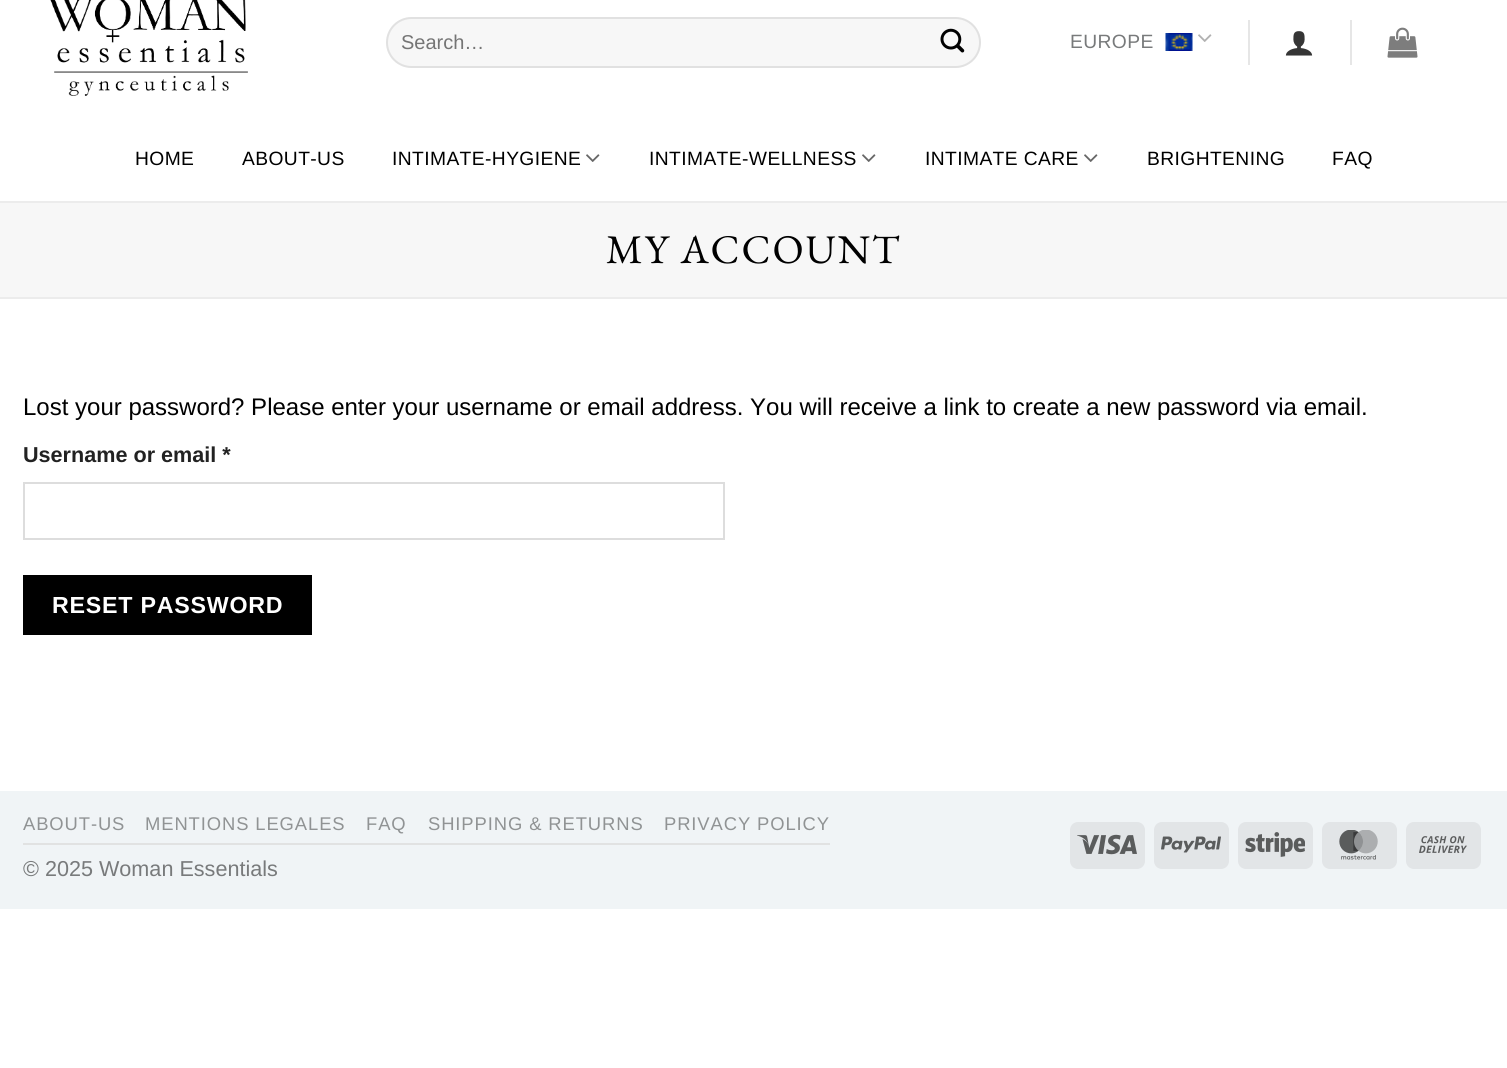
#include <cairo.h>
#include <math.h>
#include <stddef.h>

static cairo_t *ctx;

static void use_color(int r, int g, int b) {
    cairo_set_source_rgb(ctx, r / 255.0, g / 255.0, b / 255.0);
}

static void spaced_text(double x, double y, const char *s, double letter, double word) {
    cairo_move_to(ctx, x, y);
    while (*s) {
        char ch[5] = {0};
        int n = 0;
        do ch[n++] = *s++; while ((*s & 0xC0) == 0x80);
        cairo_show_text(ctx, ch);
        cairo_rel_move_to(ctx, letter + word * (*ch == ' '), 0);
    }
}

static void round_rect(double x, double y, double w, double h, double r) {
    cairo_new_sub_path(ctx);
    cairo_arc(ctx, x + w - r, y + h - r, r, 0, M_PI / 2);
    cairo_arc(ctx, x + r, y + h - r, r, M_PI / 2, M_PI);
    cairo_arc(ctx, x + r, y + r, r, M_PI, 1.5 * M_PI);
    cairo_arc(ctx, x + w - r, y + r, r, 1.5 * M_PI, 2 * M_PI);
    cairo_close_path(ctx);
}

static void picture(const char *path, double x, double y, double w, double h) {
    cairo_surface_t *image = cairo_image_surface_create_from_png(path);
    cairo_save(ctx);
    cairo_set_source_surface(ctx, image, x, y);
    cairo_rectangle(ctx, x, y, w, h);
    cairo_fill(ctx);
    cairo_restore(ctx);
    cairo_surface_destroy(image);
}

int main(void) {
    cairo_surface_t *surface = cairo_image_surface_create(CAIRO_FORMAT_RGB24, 1507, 1068);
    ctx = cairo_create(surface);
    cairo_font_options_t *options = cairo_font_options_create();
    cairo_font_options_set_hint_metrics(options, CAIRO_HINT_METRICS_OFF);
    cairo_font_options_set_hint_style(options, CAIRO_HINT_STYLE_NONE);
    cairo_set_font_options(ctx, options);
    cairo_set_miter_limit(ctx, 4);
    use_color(255, 255, 255);
    cairo_paint(ctx);
    picture("img1.png", 50, 0, 198, 96);
    use_color(247, 247, 247);
    round_rect(386, 17, 595, 51, 25.5);
    cairo_fill(ctx);
    round_rect(387, 18, 593, 49, 24.5);
    cairo_set_source_rgba(ctx, 0, 0, 0, 0.09);
    cairo_stroke(ctx);
    cairo_select_font_face(ctx, "Liberation Sans", CAIRO_FONT_SLANT_NORMAL, CAIRO_FONT_WEIGHT_NORMAL);
    cairo_set_font_size(ctx, 20);
    use_color(117, 117, 117);
    cairo_move_to(ctx, 401, 49);
    cairo_show_text(ctx, "Search…");
    picture("img2.png", 940, 28, 25, 25);
    cairo_set_font_size(ctx, 19.25);
    use_color(120, 122, 123);
    spaced_text(1070, 48, "EUROPE", 0.4, 0);
    picture("img3.png", 1165, 33, 28, 18);
    picture("img4.png", 1198, 34, 14, 8);
    use_color(230, 230, 230);
    cairo_rectangle(ctx, 1248, 20, 2, 45);
    cairo_fill(ctx);
    picture("img5.png", 1285, 31, 28, 25);
    cairo_rectangle(ctx, 1350, 20, 2, 45);
    cairo_fill(ctx);
    picture("img6.png", 1387, 27, 31, 31);
    use_color(0, 0, 0);
    spaced_text(135, 165, "HOME", 0.4, 0);
    spaced_text(242, 165, "ABOUT-US", 0.4, 0);
    spaced_text(392, 165, "INTIMATE-HYGIENE", 0.4, 0);
    picture("img7.png", 586, 154, 14, 8);
    spaced_text(649, 165, "INTIMATE-WELLNESS", 0.4, 0);
    picture("img7.png", 862, 154, 14, 8);
    spaced_text(925, 165, "INTIMATE CARE", 0.4, 0);
    picture("img7.png", 1084, 154, 14, 8);
    spaced_text(1147, 165, "BRIGHTENING", 0.4, 0);
    spaced_text(1332, 165, "FAQ", 0.4, 0);
    use_color(247, 247, 247);
    cairo_rectangle(ctx, 0, 203, 1507, 94);
    cairo_fill(ctx);
    use_color(236, 236, 236);
    cairo_rectangle(ctx, 0, 201, 1507, 2);
    cairo_fill(ctx);
    cairo_rectangle(ctx, 0, 297, 1507, 2);
    cairo_fill(ctx);
    cairo_select_font_face(ctx, "EB Garamond", CAIRO_FONT_SLANT_NORMAL, CAIRO_FONT_WEIGHT_NORMAL);
    cairo_set_font_size(ctx, 40.75);
    use_color(0, 0, 0);
    spaced_text(606, 263, "MY ACCOUNT", 2, 0);
    cairo_select_font_face(ctx, "Liberation Sans", CAIRO_FONT_SLANT_NORMAL, CAIRO_FONT_WEIGHT_NORMAL);
    cairo_set_font_size(ctx, 24);
    cairo_move_to(ctx, 23, 415);
    cairo_show_text(ctx, "Lost your password? Please enter your username or email address. You will receive a link to create a new password via email.");
    cairo_select_font_face(ctx, "Liberation Sans", CAIRO_FONT_SLANT_NORMAL, CAIRO_FONT_WEIGHT_BOLD);
    cairo_set_font_size(ctx, 21.6);
    use_color(34, 34, 34);
    cairo_move_to(ctx, 23, 462);
    cairo_show_text(ctx, "Username or email *");
    cairo_rectangle(ctx, 24, 483, 700, 56);
    use_color(221, 221, 221);
    cairo_stroke(ctx);
    use_color(0, 0, 0);
    cairo_rectangle(ctx, 23, 575, 289, 60);
    cairo_fill(ctx);
    cairo_set_font_size(ctx, 23.25);
    use_color(255, 255, 255);
    spaced_text(52, 613, "RESET PASSWORD", 0.75, 0);
    use_color(240, 244, 246);
    cairo_rectangle(ctx, 0, 791, 1507, 118);
    cairo_fill(ctx);
    use_color(225, 226, 226);
    cairo_rectangle(ctx, 23, 843, 807, 2);
    cairo_fill(ctx);
    cairo_select_font_face(ctx, "Liberation Sans", CAIRO_FONT_SLANT_NORMAL, CAIRO_FONT_WEIGHT_NORMAL);
    cairo_set_font_size(ctx, 18.4);
    use_color(144, 147, 148);
    spaced_text(23, 830, "ABOUT-US", 0.9, 0);
    spaced_text(145, 830, "MENTIONS LEGALES", 0.9, 0);
    spaced_text(366, 830, "FAQ", 0.9, 0);
    spaced_text(428, 830, "SHIPPING & RETURNS", 0.9, 0);
    spaced_text(664, 830, "PRIVACY POLICY", 0.9, 0);
    cairo_set_font_size(ctx, 21.6);
    use_color(120, 122, 123);
    cairo_move_to(ctx, 23, 876);
    cairo_show_text(ctx, "© 2025 Woman Essentials");
    use_color(226, 229, 231);
    round_rect(1070, 822, 75, 47, 8);
    cairo_fill(ctx);
    picture("img8.png", 1077, 834, 60, 21);
    round_rect(1154, 822, 75, 47, 8);
    cairo_fill(ctx);
    picture("img9.png", 1161, 836, 60, 17);
    round_rect(1238, 822, 75, 47, 8);
    cairo_fill(ctx);
    picture("img10.png", 1245, 832, 60, 25);
    round_rect(1322, 822, 75, 47, 8);
    cairo_fill(ctx);
    picture("img11.png", 1339, 830, 39, 30);
    round_rect(1406, 822, 75, 47, 8);
    cairo_fill(ctx);
    picture("img12.png", 1419, 836, 48, 17);
    cairo_surface_write_to_png(surface, "result.png");
    cairo_font_options_destroy(options);
    cairo_destroy(ctx);
    cairo_surface_destroy(surface);
    return 0;
}
